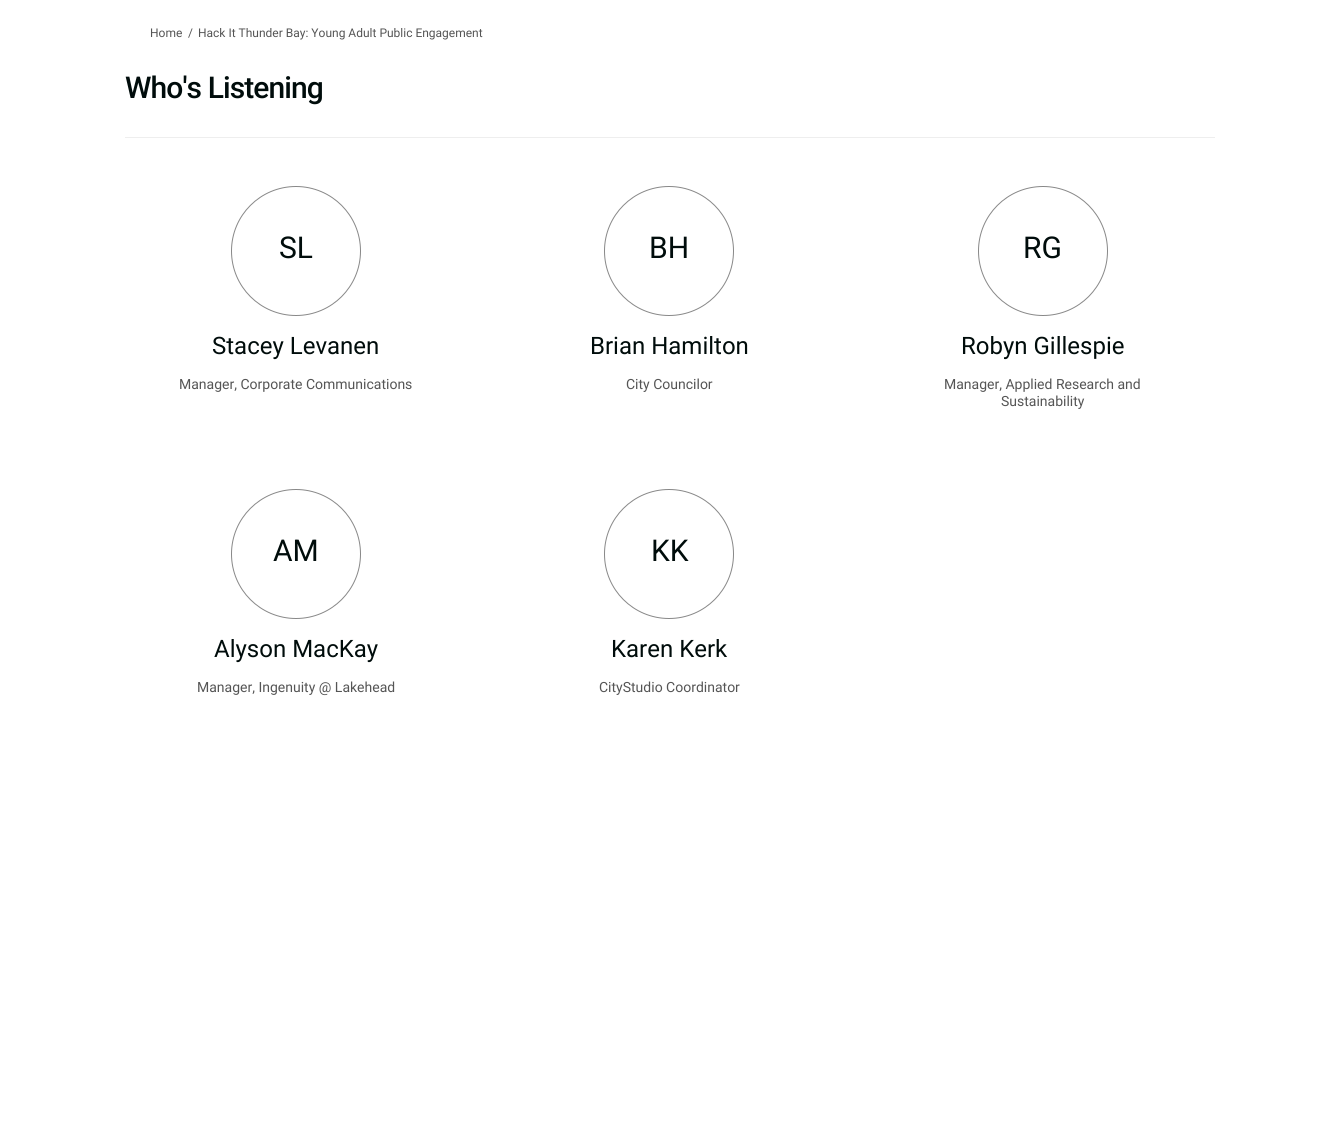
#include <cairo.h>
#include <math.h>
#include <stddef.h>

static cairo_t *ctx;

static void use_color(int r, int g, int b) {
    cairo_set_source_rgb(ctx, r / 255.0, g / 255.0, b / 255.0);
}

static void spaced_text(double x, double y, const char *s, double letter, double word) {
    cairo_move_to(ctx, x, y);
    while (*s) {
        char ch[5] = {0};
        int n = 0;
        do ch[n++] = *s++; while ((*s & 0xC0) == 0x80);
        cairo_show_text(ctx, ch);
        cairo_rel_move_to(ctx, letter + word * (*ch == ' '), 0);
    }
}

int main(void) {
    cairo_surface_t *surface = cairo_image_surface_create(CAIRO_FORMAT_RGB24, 1339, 1126);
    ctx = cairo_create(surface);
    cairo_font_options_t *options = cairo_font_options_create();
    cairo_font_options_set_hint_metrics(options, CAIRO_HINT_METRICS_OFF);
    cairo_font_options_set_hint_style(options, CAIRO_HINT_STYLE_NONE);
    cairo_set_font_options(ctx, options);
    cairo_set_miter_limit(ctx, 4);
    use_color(255, 255, 255);
    cairo_paint(ctx);
    cairo_select_font_face(ctx, "Roboto", CAIRO_FONT_SLANT_NORMAL, CAIRO_FONT_WEIGHT_NORMAL);
    cairo_set_font_size(ctx, 12);
    use_color(85, 85, 85);
    cairo_move_to(ctx, 150, 37);
    cairo_show_text(ctx, "Home");
    cairo_move_to(ctx, 188, 37);
    cairo_show_text(ctx, "/");
    cairo_move_to(ctx, 198, 37);
    cairo_show_text(ctx, "Hack It Thunder Bay: Young Adult Public Engagement");
    use_color(238, 238, 238);
    cairo_rectangle(ctx, 125, 137, 1090, 1);
    cairo_fill(ctx);
    cairo_select_font_face(ctx, "Roboto Medium", CAIRO_FONT_SLANT_NORMAL, CAIRO_FONT_WEIGHT_NORMAL);
    cairo_set_font_size(ctx, 30);
    use_color(0, 12, 11);
    spaced_text(125, 98, "Who's Listening", -0.9, 0);
    cairo_new_path(ctx);
    cairo_arc(ctx, 296, 251, 64.5, 0, 2 * M_PI);
    use_color(136, 136, 136);
    cairo_set_line_width(ctx, 1);
    cairo_stroke(ctx);
    cairo_select_font_face(ctx, "Roboto", CAIRO_FONT_SLANT_NORMAL, CAIRO_FONT_WEIGHT_NORMAL);
    use_color(0, 12, 11);
    cairo_move_to(ctx, 279, 258);
    cairo_show_text(ctx, "SL");
    cairo_set_font_size(ctx, 24);
    cairo_move_to(ctx, 212, 354);
    cairo_show_text(ctx, "Stacey Levanen");
    cairo_set_font_size(ctx, 14);
    use_color(85, 85, 85);
    cairo_move_to(ctx, 179, 389);
    cairo_show_text(ctx, "Manager, Corporate Communications");
    cairo_new_path(ctx);
    cairo_arc(ctx, 669, 251, 64.5, 0, 2 * M_PI);
    use_color(136, 136, 136);
    cairo_stroke(ctx);
    cairo_set_font_size(ctx, 30);
    use_color(0, 12, 11);
    cairo_move_to(ctx, 649, 258);
    cairo_show_text(ctx, "BH");
    cairo_set_font_size(ctx, 24);
    cairo_move_to(ctx, 590, 354);
    cairo_show_text(ctx, "Brian Hamilton");
    cairo_set_font_size(ctx, 14);
    use_color(85, 85, 85);
    cairo_move_to(ctx, 626, 389);
    cairo_show_text(ctx, "City Councilor");
    cairo_new_path(ctx);
    cairo_arc(ctx, 1043, 251, 64.5, 0, 2 * M_PI);
    use_color(136, 136, 136);
    cairo_stroke(ctx);
    cairo_set_font_size(ctx, 30);
    use_color(0, 12, 11);
    cairo_move_to(ctx, 1023, 258);
    cairo_show_text(ctx, "RG");
    cairo_set_font_size(ctx, 24);
    cairo_move_to(ctx, 961, 354);
    cairo_show_text(ctx, "Robyn Gillespie");
    cairo_set_font_size(ctx, 14);
    use_color(85, 85, 85);
    cairo_move_to(ctx, 944, 389);
    cairo_show_text(ctx, "Manager, Applied Research and");
    cairo_move_to(ctx, 1001, 406);
    cairo_show_text(ctx, "Sustainability");
    cairo_new_path(ctx);
    cairo_arc(ctx, 296, 554, 64.5, 0, 2 * M_PI);
    use_color(136, 136, 136);
    cairo_stroke(ctx);
    cairo_set_font_size(ctx, 30);
    use_color(0, 12, 11);
    cairo_move_to(ctx, 273, 561);
    cairo_show_text(ctx, "AM");
    cairo_set_font_size(ctx, 24);
    cairo_move_to(ctx, 214, 657);
    cairo_show_text(ctx, "Alyson MacKay");
    cairo_set_font_size(ctx, 14);
    use_color(85, 85, 85);
    cairo_move_to(ctx, 197, 692);
    cairo_show_text(ctx, "Manager, Ingenuity @ Lakehead");
    cairo_new_path(ctx);
    cairo_arc(ctx, 669, 554, 64.5, 0, 2 * M_PI);
    use_color(136, 136, 136);
    cairo_stroke(ctx);
    cairo_set_font_size(ctx, 30);
    use_color(0, 12, 11);
    cairo_move_to(ctx, 651, 561);
    cairo_show_text(ctx, "KK");
    cairo_set_font_size(ctx, 24);
    cairo_move_to(ctx, 611, 657);
    cairo_show_text(ctx, "Karen Kerk");
    cairo_set_font_size(ctx, 14);
    use_color(85, 85, 85);
    cairo_move_to(ctx, 599, 692);
    cairo_show_text(ctx, "CityStudio Coordinator");
    cairo_surface_write_to_png(surface, "result.png");
    cairo_font_options_destroy(options);
    cairo_destroy(ctx);
    cairo_surface_destroy(surface);
    return 0;
}
